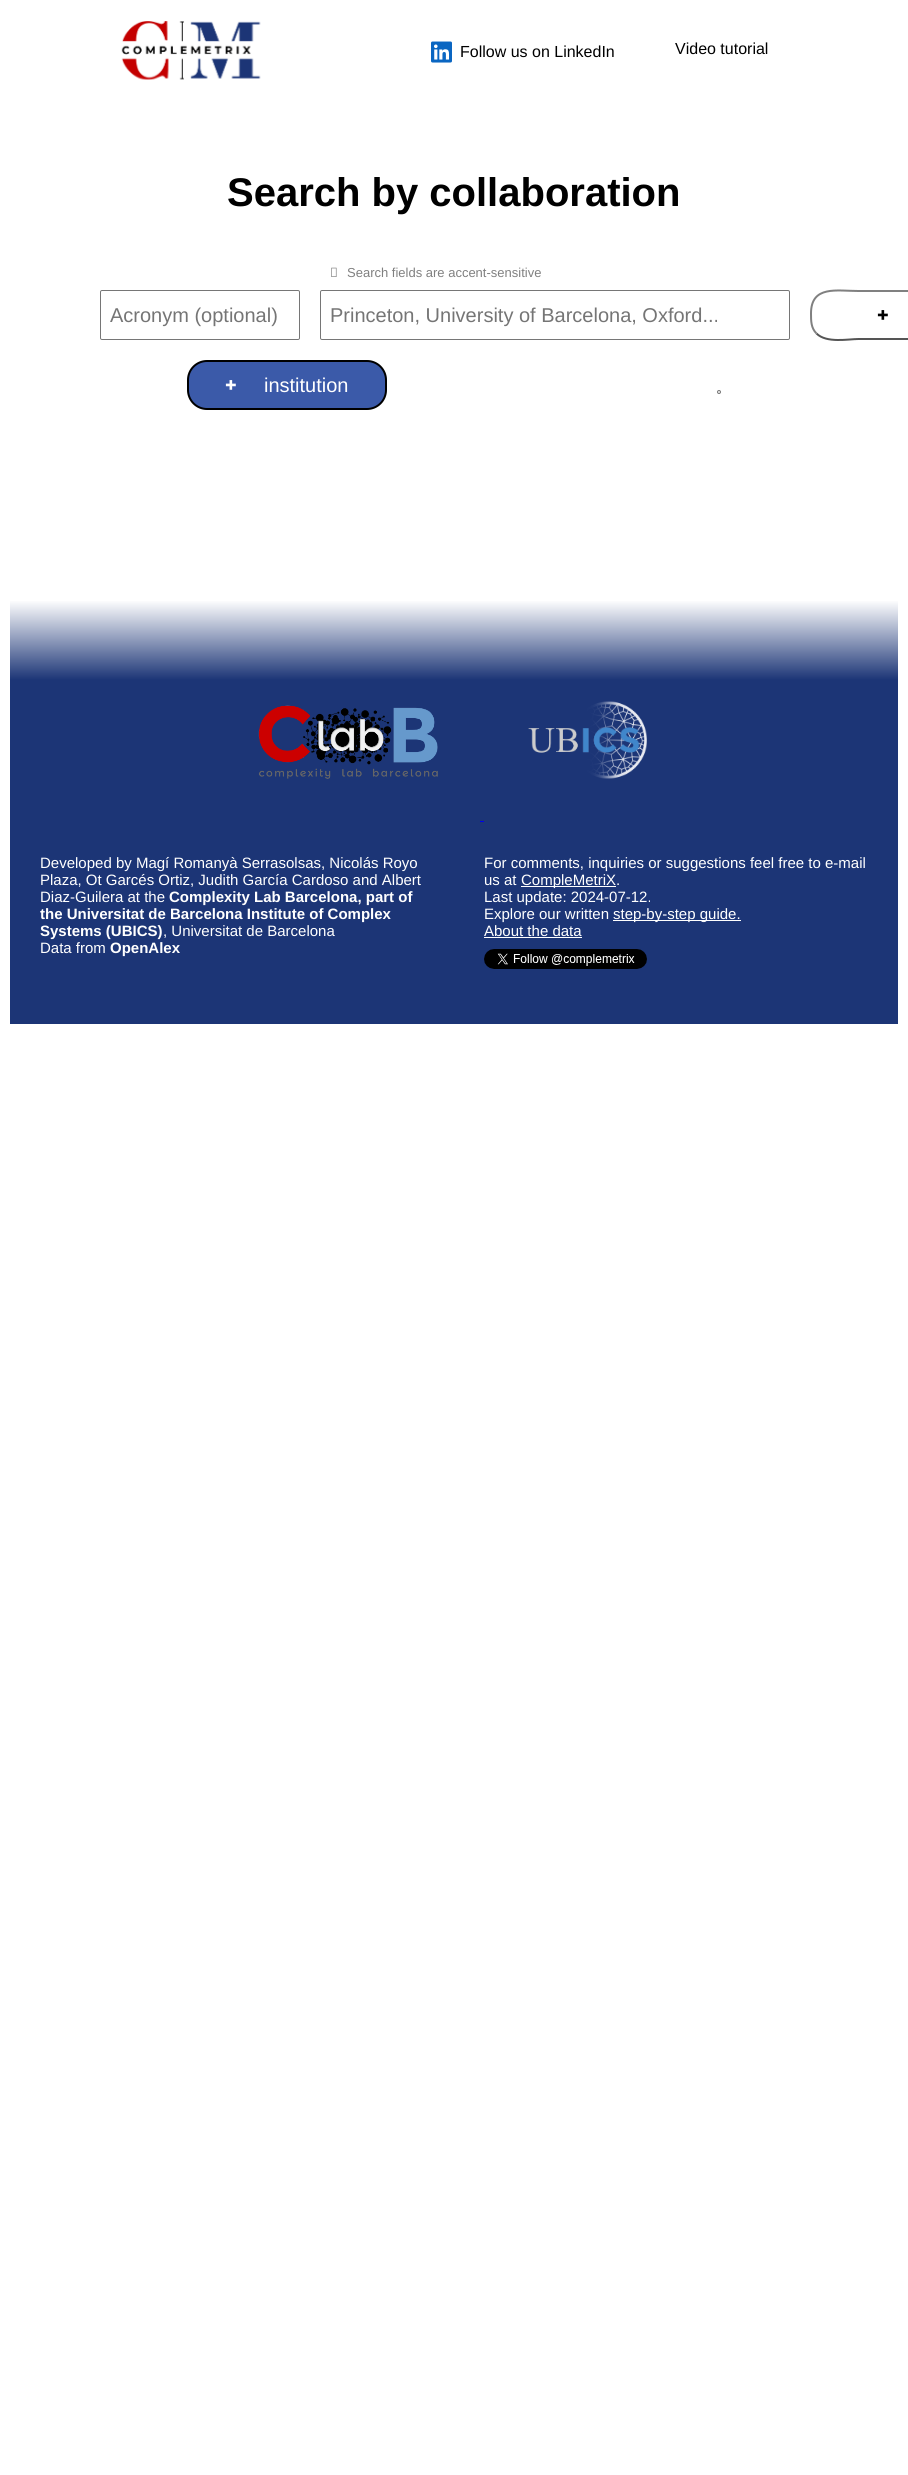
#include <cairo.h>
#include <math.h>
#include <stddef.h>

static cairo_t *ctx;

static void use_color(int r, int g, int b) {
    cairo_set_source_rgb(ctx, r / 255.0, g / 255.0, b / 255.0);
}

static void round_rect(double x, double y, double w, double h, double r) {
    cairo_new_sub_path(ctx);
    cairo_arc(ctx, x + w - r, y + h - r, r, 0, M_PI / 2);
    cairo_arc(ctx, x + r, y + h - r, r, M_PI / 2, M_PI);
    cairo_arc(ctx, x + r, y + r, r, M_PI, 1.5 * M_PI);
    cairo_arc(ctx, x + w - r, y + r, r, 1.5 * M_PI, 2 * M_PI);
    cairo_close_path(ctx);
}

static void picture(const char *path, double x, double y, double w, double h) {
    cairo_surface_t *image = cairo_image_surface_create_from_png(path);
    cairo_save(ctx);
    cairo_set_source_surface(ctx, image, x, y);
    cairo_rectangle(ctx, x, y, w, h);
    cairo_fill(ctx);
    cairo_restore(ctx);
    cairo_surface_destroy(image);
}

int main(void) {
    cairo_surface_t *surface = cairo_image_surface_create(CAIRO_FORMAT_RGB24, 908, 2475);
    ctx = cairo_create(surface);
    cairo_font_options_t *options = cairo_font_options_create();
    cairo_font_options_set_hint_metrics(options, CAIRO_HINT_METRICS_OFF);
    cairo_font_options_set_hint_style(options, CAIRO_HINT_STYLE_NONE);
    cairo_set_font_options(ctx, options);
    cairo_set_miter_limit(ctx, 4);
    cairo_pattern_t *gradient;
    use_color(255, 255, 255);
    cairo_paint(ctx);
    picture("img1.png", 121, 21, 140, 59);
    picture("img2.png", 431, 41, 21, 22);
    cairo_select_font_face(ctx, "Liberation Sans", CAIRO_FONT_SLANT_NORMAL, CAIRO_FONT_WEIGHT_NORMAL);
    cairo_set_font_size(ctx, 16);
    use_color(0, 0, 0);
    cairo_move_to(ctx, 460, 57);
    cairo_show_text(ctx, "Follow us on LinkedIn");
    cairo_move_to(ctx, 675, 54);
    cairo_show_text(ctx, "Video tutorial");
    cairo_select_font_face(ctx, "Liberation Sans", CAIRO_FONT_SLANT_NORMAL, CAIRO_FONT_WEIGHT_BOLD);
    cairo_set_font_size(ctx, 40);
    cairo_move_to(ctx, 227, 206);
    cairo_show_text(ctx, "Search by collaboration");
    picture("img3.png", 331, 267, 6, 10);
    cairo_select_font_face(ctx, "Liberation Sans", CAIRO_FONT_SLANT_NORMAL, CAIRO_FONT_WEIGHT_NORMAL);
    cairo_set_font_size(ctx, 13);
    use_color(128, 128, 128);
    cairo_move_to(ctx, 347, 277);
    cairo_show_text(ctx, "Search fields are accent-sensitive");
    round_rect(100.5, 290.5, 199, 49, 1.5);
    use_color(118, 118, 118);
    cairo_set_line_width(ctx, 1);
    cairo_stroke(ctx);
    cairo_set_font_size(ctx, 20);
    use_color(117, 117, 117);
    cairo_move_to(ctx, 110, 322);
    cairo_show_text(ctx, "Acronym (optional)");
    round_rect(320.5, 290.5, 469, 49, 1.5);
    use_color(118, 118, 118);
    cairo_stroke(ctx);
    use_color(117, 117, 117);
    cairo_move_to(ctx, 330, 322);
    cairo_show_text(ctx, "Princeton, University of Barcelona, Oxford...");
    cairo_new_path(ctx);
    cairo_move_to(ctx, 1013.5, 296.5);
    cairo_curve_to(ctx, 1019, 302, 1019, 309, 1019, 316.5);
    cairo_curve_to(ctx, 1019, 345, 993, 339, 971.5, 339);
    cairo_line_to(ctx, 858.5, 339);
    cairo_curve_to(ctx, 848.5, 339, 826.5, 343.5, 816.5, 333.5);
    use_color(85, 85, 85);
    cairo_set_line_width(ctx, 2);
    cairo_stroke(ctx);
    cairo_new_path(ctx);
    cairo_move_to(ctx, 816.5, 333.5);
    cairo_curve_to(ctx, 811, 328, 811, 321, 811, 313.5);
    cairo_curve_to(ctx, 811, 285, 837, 291, 858.5, 291);
    cairo_line_to(ctx, 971.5, 291);
    cairo_curve_to(ctx, 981.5, 291, 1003.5, 286.5, 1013.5, 296.5);
    use_color(128, 128, 128);
    cairo_stroke(ctx);
    cairo_select_font_face(ctx, "Noto Sans Black", CAIRO_FONT_SLANT_NORMAL, CAIRO_FONT_WEIGHT_NORMAL);
    use_color(0, 0, 0);
    cairo_move_to(ctx, 877, 322);
    cairo_show_text(ctx, "+");
    use_color(59, 90, 169);
    round_rect(188, 361, 198, 48, 19);
    cairo_fill_preserve(ctx);
    use_color(0, 0, 0);
    cairo_stroke(ctx);
    use_color(255, 255, 255);
    cairo_move_to(ctx, 225, 392);
    cairo_show_text(ctx, "+");
    cairo_select_font_face(ctx, "Liberation Sans", CAIRO_FONT_SLANT_NORMAL, CAIRO_FONT_WEIGHT_NORMAL);
    cairo_move_to(ctx, 264, 392);
    cairo_show_text(ctx, "institution");
    use_color(239, 239, 239);
    cairo_new_path(ctx);
    cairo_arc(ctx, 719, 392, 1.5, 0, 2 * M_PI);
    cairo_fill_preserve(ctx);
    use_color(118, 118, 118);
    cairo_set_line_width(ctx, 1);
    cairo_stroke(ctx);
    gradient = cairo_pattern_create_linear(454, 680, 454, 600);
    cairo_pattern_add_color_stop_rgba(gradient, 0, 0.11, 0.208, 0.463, 1);
    cairo_pattern_add_color_stop_rgba(gradient, 1, 1, 1, 1, 1);
    cairo_set_source(ctx, gradient);
    cairo_pattern_destroy(gradient);
    cairo_rectangle(ctx, 10, 601, 888, 79);
    cairo_fill(ctx);
    use_color(28, 53, 118);
    cairo_rectangle(ctx, 10, 680, 888, 344);
    cairo_fill(ctx);
    picture("img4.png", 258, 705, 180, 74);
    picture("img5.png", 528, 701, 119, 78);
    use_color(0, 0, 238);
    cairo_rectangle(ctx, 480, 821, 4, 1);
    cairo_fill(ctx);
    cairo_set_font_size(ctx, 15);
    use_color(255, 255, 255);
    cairo_move_to(ctx, 40, 868);
    cairo_show_text(ctx, "Developed by Magí Romanyà Serrasolsas, Nicolás Royo");
    cairo_move_to(ctx, 40, 885);
    cairo_show_text(ctx, "Plaza, Ot Garcés Ortiz, Judith García Cardoso and Albert");
    cairo_move_to(ctx, 40, 902);
    cairo_show_text(ctx, "Diaz-Guilera at the");
    cairo_select_font_face(ctx, "Liberation Sans", CAIRO_FONT_SLANT_NORMAL, CAIRO_FONT_WEIGHT_BOLD);
    cairo_move_to(ctx, 169, 902);
    cairo_show_text(ctx, "Complexity Lab Barcelona, part of");
    cairo_move_to(ctx, 40, 919);
    cairo_show_text(ctx, "the Universitat de Barcelona Institute of Complex");
    cairo_move_to(ctx, 40, 936);
    cairo_show_text(ctx, "Systems (UBICS)");
    cairo_select_font_face(ctx, "Liberation Sans", CAIRO_FONT_SLANT_NORMAL, CAIRO_FONT_WEIGHT_NORMAL);
    cairo_move_to(ctx, 163, 936);
    cairo_show_text(ctx, ", Universitat de Barcelona");
    cairo_move_to(ctx, 40, 953);
    cairo_show_text(ctx, "Data from");
    cairo_select_font_face(ctx, "Liberation Sans", CAIRO_FONT_SLANT_NORMAL, CAIRO_FONT_WEIGHT_BOLD);
    cairo_move_to(ctx, 110, 953);
    cairo_show_text(ctx, "OpenAlex");
    cairo_select_font_face(ctx, "Liberation Sans", CAIRO_FONT_SLANT_NORMAL, CAIRO_FONT_WEIGHT_NORMAL);
    cairo_move_to(ctx, 484, 868);
    cairo_show_text(ctx, "For comments, inquiries or suggestions feel free to e-mail");
    cairo_move_to(ctx, 484, 885);
    cairo_show_text(ctx, "us at");
    cairo_rectangle(ctx, 521, 886, 95, 1);
    cairo_fill(ctx);
    cairo_move_to(ctx, 521, 885);
    cairo_show_text(ctx, "CompleMetriX.");
    cairo_move_to(ctx, 484, 902);
    cairo_show_text(ctx, "Last update: 2024-07-12.");
    cairo_move_to(ctx, 484, 919);
    cairo_show_text(ctx, "Explore our written");
    cairo_rectangle(ctx, 613, 920, 128, 1);
    cairo_fill(ctx);
    cairo_move_to(ctx, 613, 919);
    cairo_show_text(ctx, "step-by-step guide.");
    cairo_move_to(ctx, 484, 936);
    cairo_show_text(ctx, "About the data");
    cairo_rectangle(ctx, 484, 937, 98, 1);
    cairo_fill(ctx);
    picture("img6.png", 484, 949, 163, 20);
    cairo_surface_write_to_png(surface, "result.png");
    cairo_font_options_destroy(options);
    cairo_destroy(ctx);
    cairo_surface_destroy(surface);
    return 0;
}
